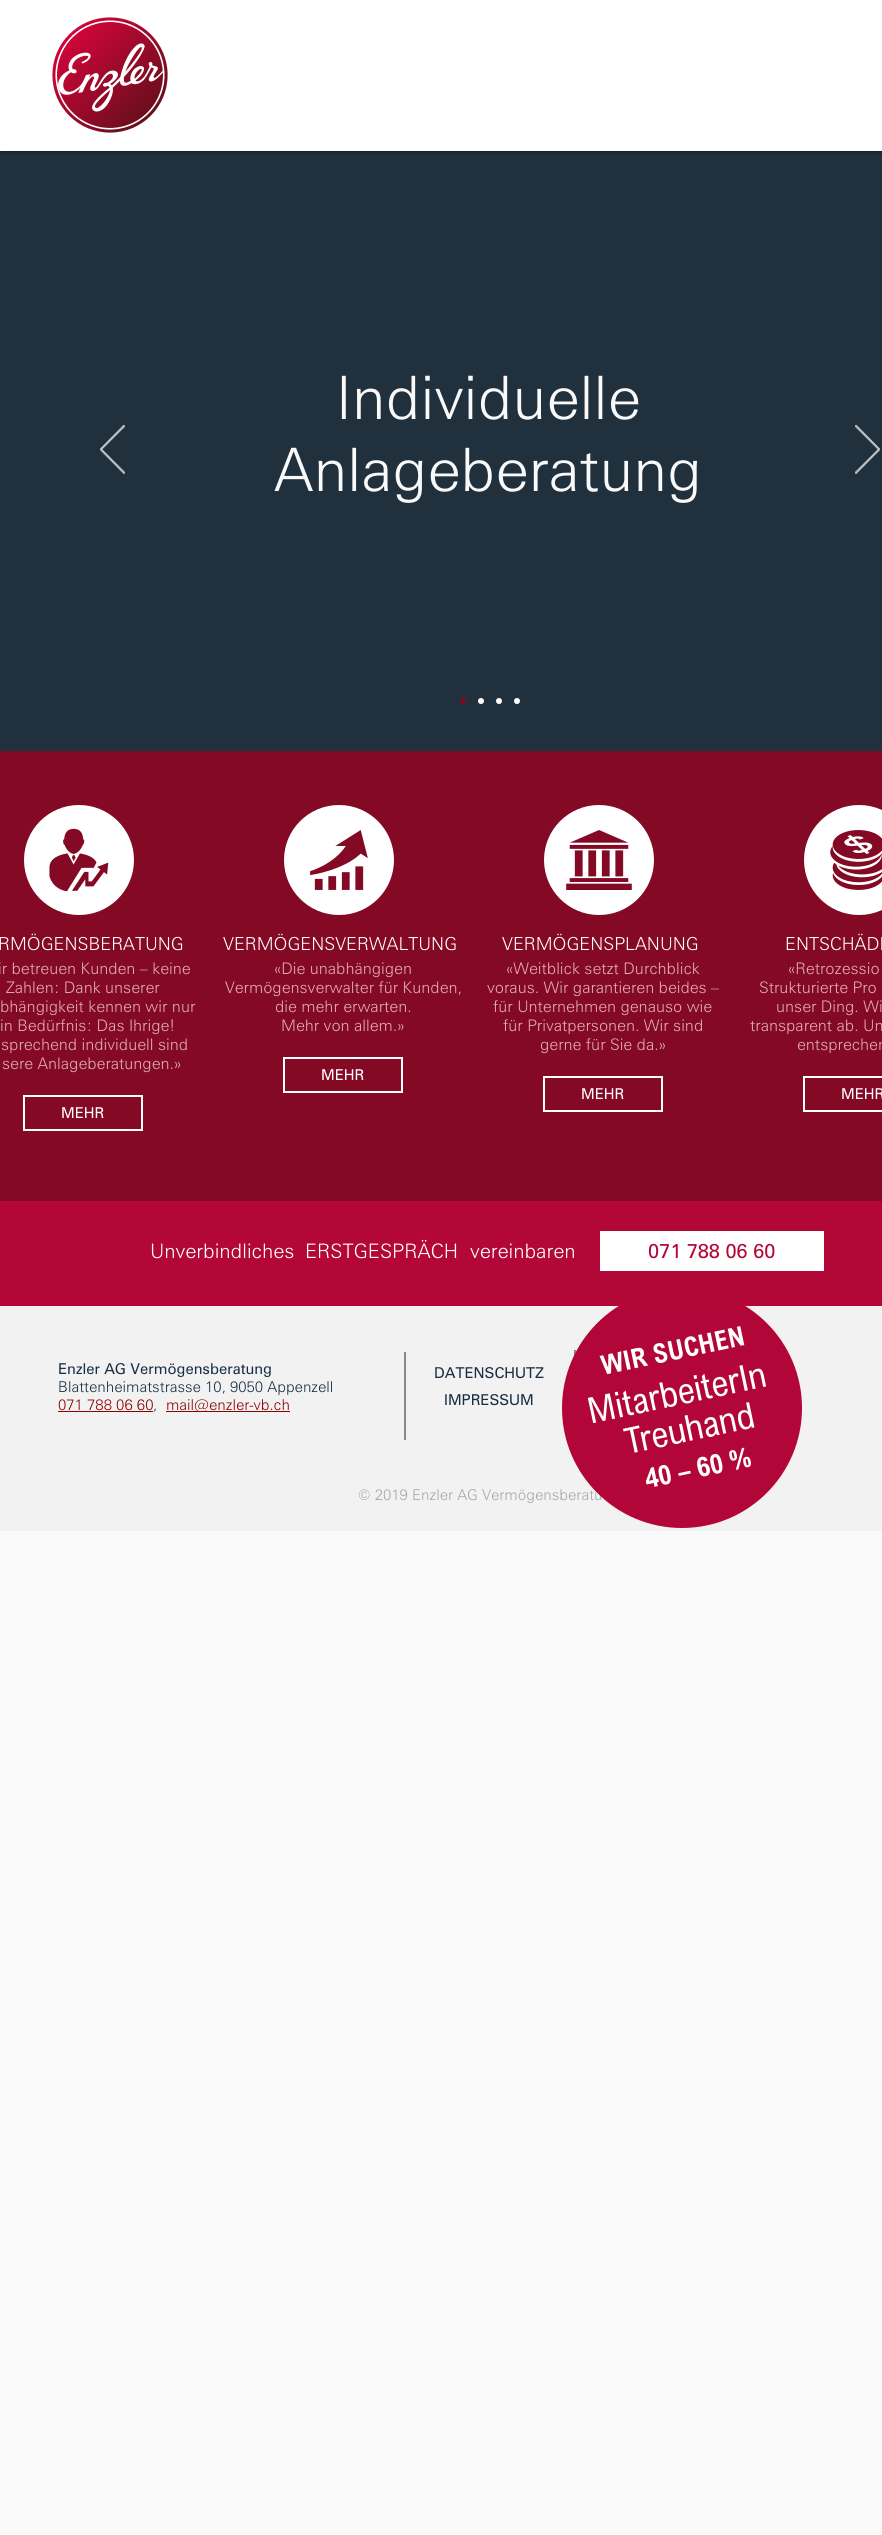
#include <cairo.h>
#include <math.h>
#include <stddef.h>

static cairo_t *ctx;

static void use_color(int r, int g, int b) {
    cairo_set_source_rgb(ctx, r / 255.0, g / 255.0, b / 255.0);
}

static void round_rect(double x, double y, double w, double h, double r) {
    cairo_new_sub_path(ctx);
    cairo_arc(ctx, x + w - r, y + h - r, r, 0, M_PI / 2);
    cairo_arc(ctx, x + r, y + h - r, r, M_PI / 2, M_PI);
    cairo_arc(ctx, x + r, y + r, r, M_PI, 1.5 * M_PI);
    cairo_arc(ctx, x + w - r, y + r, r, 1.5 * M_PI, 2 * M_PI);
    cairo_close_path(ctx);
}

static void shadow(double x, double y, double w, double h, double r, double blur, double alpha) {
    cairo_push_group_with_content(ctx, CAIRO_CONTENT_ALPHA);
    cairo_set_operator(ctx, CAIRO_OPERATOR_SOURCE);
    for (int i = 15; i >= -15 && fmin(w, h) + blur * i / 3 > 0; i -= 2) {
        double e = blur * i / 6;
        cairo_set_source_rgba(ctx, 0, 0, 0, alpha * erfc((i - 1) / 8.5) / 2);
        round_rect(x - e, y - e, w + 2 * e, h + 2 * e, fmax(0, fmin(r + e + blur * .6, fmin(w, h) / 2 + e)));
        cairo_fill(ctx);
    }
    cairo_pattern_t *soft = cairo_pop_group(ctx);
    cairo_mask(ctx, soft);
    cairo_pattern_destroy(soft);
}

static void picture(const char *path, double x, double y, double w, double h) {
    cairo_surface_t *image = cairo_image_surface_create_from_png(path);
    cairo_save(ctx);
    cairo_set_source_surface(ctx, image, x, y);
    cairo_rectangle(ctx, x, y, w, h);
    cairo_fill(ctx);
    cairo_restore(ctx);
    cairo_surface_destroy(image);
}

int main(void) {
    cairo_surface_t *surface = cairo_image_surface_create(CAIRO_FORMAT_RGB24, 882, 2535);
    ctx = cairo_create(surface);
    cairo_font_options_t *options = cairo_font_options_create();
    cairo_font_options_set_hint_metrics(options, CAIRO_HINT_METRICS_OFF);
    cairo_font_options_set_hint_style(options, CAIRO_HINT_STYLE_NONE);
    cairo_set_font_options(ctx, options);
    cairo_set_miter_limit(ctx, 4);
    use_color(249, 249, 249);
    cairo_paint(ctx);
    use_color(32, 48, 60);
    cairo_rectangle(ctx, 0, 151, 882, 600);
    cairo_fill(ctx);
    use_color(0, 0, 0);
    shadow(0, 0, 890, 151, 0, 2.5, 0.7);
    use_color(255, 255, 255);
    cairo_rectangle(ctx, 0, 0, 882, 151);
    cairo_fill(ctx);
    picture("img1.png", 52, 17, 116, 116);
    use_color(144, 152, 158);
    cairo_new_path(ctx);
    cairo_move_to(ctx, 124, 474);
    cairo_line_to(ctx, 100, 449);
    cairo_line_to(ctx, 124, 425);
    cairo_line_to(ctx, 125, 426);
    cairo_line_to(ctx, 102, 449);
    cairo_line_to(ctx, 125, 473);
    cairo_close_path(ctx);
    cairo_fill(ctx);
    cairo_save(ctx);
    cairo_rectangle(ctx, 100, 425, 25, 49);
    cairo_clip(ctx);
    cairo_new_path(ctx);
    cairo_move_to(ctx, 124, 473.5);
    cairo_line_to(ctx, 100, 449.5);
    cairo_line_to(ctx, 124, 425);
    cairo_line_to(ctx, 125, 426);
    cairo_line_to(ctx, 101.5, 449.5);
    cairo_line_to(ctx, 125, 472.5);
    cairo_close_path(ctx);
    cairo_set_source_rgba(ctx, 1, 1, 1, 0.5);
    cairo_set_line_width(ctx, 1.2);
    cairo_stroke(ctx);
    cairo_restore(ctx);
    cairo_select_font_face(ctx, "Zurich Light", CAIRO_FONT_SLANT_NORMAL, CAIRO_FONT_WEIGHT_NORMAL);
    cairo_set_font_size(ctx, 60);
    use_color(249, 249, 249);
    cairo_move_to(ctx, 336, 419);
    cairo_show_text(ctx, "Individuelle");
    cairo_move_to(ctx, 274, 491);
    cairo_show_text(ctx, "Anlageberatung");
    use_color(144, 152, 158);
    cairo_new_path(ctx);
    cairo_move_to(ctx, 856, 474);
    cairo_line_to(ctx, 880, 449);
    cairo_line_to(ctx, 856, 425);
    cairo_line_to(ctx, 855, 426);
    cairo_line_to(ctx, 878, 449);
    cairo_line_to(ctx, 855, 473);
    cairo_close_path(ctx);
    cairo_fill(ctx);
    cairo_save(ctx);
    cairo_rectangle(ctx, 855, 425, 25, 49);
    cairo_clip(ctx);
    cairo_new_path(ctx);
    cairo_move_to(ctx, 856, 473.5);
    cairo_line_to(ctx, 880, 449.5);
    cairo_line_to(ctx, 856, 425);
    cairo_line_to(ctx, 855, 426);
    cairo_line_to(ctx, 878.5, 449.5);
    cairo_line_to(ctx, 855, 472.5);
    cairo_close_path(ctx);
    cairo_set_source_rgba(ctx, 1, 1, 1, 0.5);
    cairo_set_line_width(ctx, 1.2);
    cairo_stroke(ctx);
    cairo_restore(ctx);
    use_color(131, 9, 37);
    cairo_arc(ctx, 463, 701, 3, 0, 2 * M_PI);
    cairo_fill(ctx);
    use_color(255, 255, 255);
    cairo_arc(ctx, 481, 701, 3, 0, 2 * M_PI);
    cairo_fill(ctx);
    cairo_arc(ctx, 499, 701, 3, 0, 2 * M_PI);
    cairo_fill(ctx);
    cairo_arc(ctx, 517, 701, 3, 0, 2 * M_PI);
    cairo_fill(ctx);
    use_color(131, 9, 37);
    cairo_rectangle(ctx, 0, 751, 882, 450);
    cairo_fill(ctx);
    picture("img2.png", 24, 805, 110, 110);
    cairo_set_font_size(ctx, 18);
    use_color(255, 255, 255);
    cairo_move_to(ctx, -2, 950);
    cairo_show_text(ctx, "RMÖGENSBERATUNG");
    cairo_set_font_size(ctx, 16);
    use_color(224, 172, 184);
    cairo_move_to(ctx, -2, 974);
    cairo_show_text(ctx, "ir betreuen Kunden – keine");
    cairo_move_to(ctx, 6, 993);
    cairo_show_text(ctx, "Zahlen: Dank unserer");
    cairo_move_to(ctx, 0, 1012);
    cairo_show_text(ctx, "bhängigkeit kennen wir nur");
    cairo_move_to(ctx, 0, 1031);
    cairo_show_text(ctx, "in Bedürfnis: Das Ihrige!");
    cairo_move_to(ctx, 1, 1050);
    cairo_show_text(ctx, "sprechend individuell sind");
    cairo_move_to(ctx, 2, 1069);
    cairo_show_text(ctx, "sere Anlageberatungen.»");
    cairo_rectangle(ctx, 24, 1096, 118, 34);
    use_color(255, 255, 255);
    cairo_stroke(ctx);
    cairo_select_font_face(ctx, "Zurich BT", CAIRO_FONT_SLANT_NORMAL, CAIRO_FONT_WEIGHT_NORMAL);
    cairo_set_font_size(ctx, 15);
    cairo_move_to(ctx, 61, 1118);
    cairo_show_text(ctx, "MEHR");
    picture("img3.png", 284, 805, 110, 110);
    cairo_select_font_face(ctx, "Zurich Light", CAIRO_FONT_SLANT_NORMAL, CAIRO_FONT_WEIGHT_NORMAL);
    cairo_set_font_size(ctx, 18);
    cairo_move_to(ctx, 223, 950);
    cairo_show_text(ctx, "VERMÖGENSVERWALTUNG");
    cairo_set_font_size(ctx, 16);
    use_color(224, 172, 184);
    cairo_move_to(ctx, 274, 974);
    cairo_show_text(ctx, "«Die unabhängigen");
    cairo_move_to(ctx, 225, 993);
    cairo_show_text(ctx, "Vermögensverwalter für Kunden,");
    cairo_move_to(ctx, 275, 1012);
    cairo_show_text(ctx, "die mehr erwarten.");
    cairo_move_to(ctx, 281, 1031);
    cairo_show_text(ctx, "Mehr von allem.»");
    cairo_rectangle(ctx, 284, 1058, 118, 34);
    use_color(255, 255, 255);
    cairo_stroke(ctx);
    cairo_select_font_face(ctx, "Zurich BT", CAIRO_FONT_SLANT_NORMAL, CAIRO_FONT_WEIGHT_NORMAL);
    cairo_set_font_size(ctx, 15);
    cairo_move_to(ctx, 321, 1080);
    cairo_show_text(ctx, "MEHR");
    picture("img4.png", 544, 805, 110, 110);
    cairo_select_font_face(ctx, "Zurich Light", CAIRO_FONT_SLANT_NORMAL, CAIRO_FONT_WEIGHT_NORMAL);
    cairo_set_font_size(ctx, 18);
    cairo_move_to(ctx, 502, 950);
    cairo_show_text(ctx, "VERMÖGENSPLANUNG");
    cairo_set_font_size(ctx, 16);
    use_color(224, 172, 184);
    cairo_move_to(ctx, 506, 974);
    cairo_show_text(ctx, "«Weitblick setzt Durchblick");
    cairo_move_to(ctx, 487, 993);
    cairo_show_text(ctx, "voraus. Wir garantieren beides –");
    cairo_move_to(ctx, 493, 1012);
    cairo_show_text(ctx, "für Unternehmen genauso wie");
    cairo_move_to(ctx, 503, 1031);
    cairo_show_text(ctx, "für Privatpersonen. Wir sind");
    cairo_move_to(ctx, 540, 1050);
    cairo_show_text(ctx, "gerne für Sie da.»");
    cairo_rectangle(ctx, 544, 1077, 118, 34);
    use_color(255, 255, 255);
    cairo_stroke(ctx);
    cairo_select_font_face(ctx, "Zurich BT", CAIRO_FONT_SLANT_NORMAL, CAIRO_FONT_WEIGHT_NORMAL);
    cairo_set_font_size(ctx, 15);
    cairo_move_to(ctx, 581, 1099);
    cairo_show_text(ctx, "MEHR");
    picture("img5.png", 804, 805, 78, 110);
    cairo_select_font_face(ctx, "Zurich Light", CAIRO_FONT_SLANT_NORMAL, CAIRO_FONT_WEIGHT_NORMAL);
    cairo_set_font_size(ctx, 18);
    cairo_move_to(ctx, 785, 950);
    cairo_show_text(ctx, "ENTSCHÄDI");
    cairo_set_font_size(ctx, 16);
    use_color(224, 172, 184);
    cairo_move_to(ctx, 788, 974);
    cairo_show_text(ctx, "«Retrozessio");
    cairo_move_to(ctx, 759, 993);
    cairo_show_text(ctx, "Strukturierte Pro");
    cairo_move_to(ctx, 776, 1012);
    cairo_show_text(ctx, "unser Ding. Wi");
    cairo_move_to(ctx, 750, 1031);
    cairo_show_text(ctx, "transparent ab. Un");
    cairo_move_to(ctx, 797, 1050);
    cairo_show_text(ctx, "entsprechen");
    cairo_rectangle(ctx, 804, 1077, 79, 34);
    use_color(255, 255, 255);
    cairo_stroke(ctx);
    cairo_select_font_face(ctx, "Zurich BT", CAIRO_FONT_SLANT_NORMAL, CAIRO_FONT_WEIGHT_NORMAL);
    cairo_set_font_size(ctx, 15);
    cairo_move_to(ctx, 841, 1099);
    cairo_show_text(ctx, "MEHR");
    use_color(179, 7, 55);
    cairo_rectangle(ctx, 0, 1201, 882, 105);
    cairo_fill(ctx);
    cairo_select_font_face(ctx, "Zurich Light", CAIRO_FONT_SLANT_NORMAL, CAIRO_FONT_WEIGHT_NORMAL);
    cairo_set_font_size(ctx, 20);
    use_color(255, 255, 255);
    cairo_move_to(ctx, 150, 1258);
    cairo_show_text(ctx, "Unverbindliches");
    cairo_move_to(ctx, 305, 1258);
    cairo_show_text(ctx, "ERSTGESPRÄCH");
    cairo_move_to(ctx, 470, 1258);
    cairo_show_text(ctx, "vereinbaren");
    cairo_rectangle(ctx, 600, 1231, 224, 40);
    cairo_fill(ctx);
    cairo_select_font_face(ctx, "Zurich BT", CAIRO_FONT_SLANT_NORMAL, CAIRO_FONT_WEIGHT_NORMAL);
    use_color(179, 7, 55);
    cairo_move_to(ctx, 648, 1258);
    cairo_show_text(ctx, "071 788 06 60");
    use_color(242, 242, 242);
    cairo_rectangle(ctx, 0, 1306, 882, 225);
    cairo_fill(ctx);
    use_color(136, 136, 136);
    cairo_rectangle(ctx, 574, 1350, 2, 6);
    cairo_fill(ctx);
    cairo_select_font_face(ctx, "Zurich Light", CAIRO_FONT_SLANT_NORMAL, CAIRO_FONT_WEIGHT_NORMAL);
    cairo_set_font_size(ctx, 15);
    use_color(167, 167, 166);
    cairo_move_to(ctx, 358, 1500);
    cairo_show_text(ctx, "© 2019 Enzler AG Vermögensberatu");
    picture("img6.png", 562, 1306, 240, 222);
    cairo_select_font_face(ctx, "Zurich BT", CAIRO_FONT_SLANT_NORMAL, CAIRO_FONT_WEIGHT_NORMAL);
    use_color(26, 46, 68);
    cairo_move_to(ctx, 58, 1374);
    cairo_show_text(ctx, "Enzler AG Vermögensberatung");
    cairo_select_font_face(ctx, "Zurich Light", CAIRO_FONT_SLANT_NORMAL, CAIRO_FONT_WEIGHT_NORMAL);
    cairo_move_to(ctx, 58, 1392);
    cairo_show_text(ctx, "Blattenheimatstrasse 10, 9050 Appenzell");
    use_color(139, 0, 0);
    cairo_move_to(ctx, 58, 1410);
    cairo_show_text(ctx, "071 788 06 60");
    use_color(26, 46, 68);
    cairo_move_to(ctx, 153, 1410);
    cairo_show_text(ctx, ",");
    use_color(139, 0, 0);
    cairo_rectangle(ctx, 58, 1411, 95, 1);
    cairo_fill(ctx);
    cairo_rectangle(ctx, 166, 1411, 124, 1);
    cairo_fill(ctx);
    cairo_move_to(ctx, 166, 1410);
    cairo_show_text(ctx, "mail@enzler-vb.ch");
    use_color(136, 136, 136);
    cairo_rectangle(ctx, 404, 1352, 2, 88);
    cairo_fill(ctx);
    cairo_select_font_face(ctx, "Zurich BT", CAIRO_FONT_SLANT_NORMAL, CAIRO_FONT_WEIGHT_NORMAL);
    use_color(26, 46, 68);
    cairo_move_to(ctx, 434, 1378);
    cairo_show_text(ctx, "DATENSCHUTZ");
    cairo_move_to(ctx, 444, 1405);
    cairo_show_text(ctx, "IMPRESSUM");
    cairo_surface_write_to_png(surface, "result.png");
    cairo_font_options_destroy(options);
    cairo_destroy(ctx);
    cairo_surface_destroy(surface);
    return 0;
}
